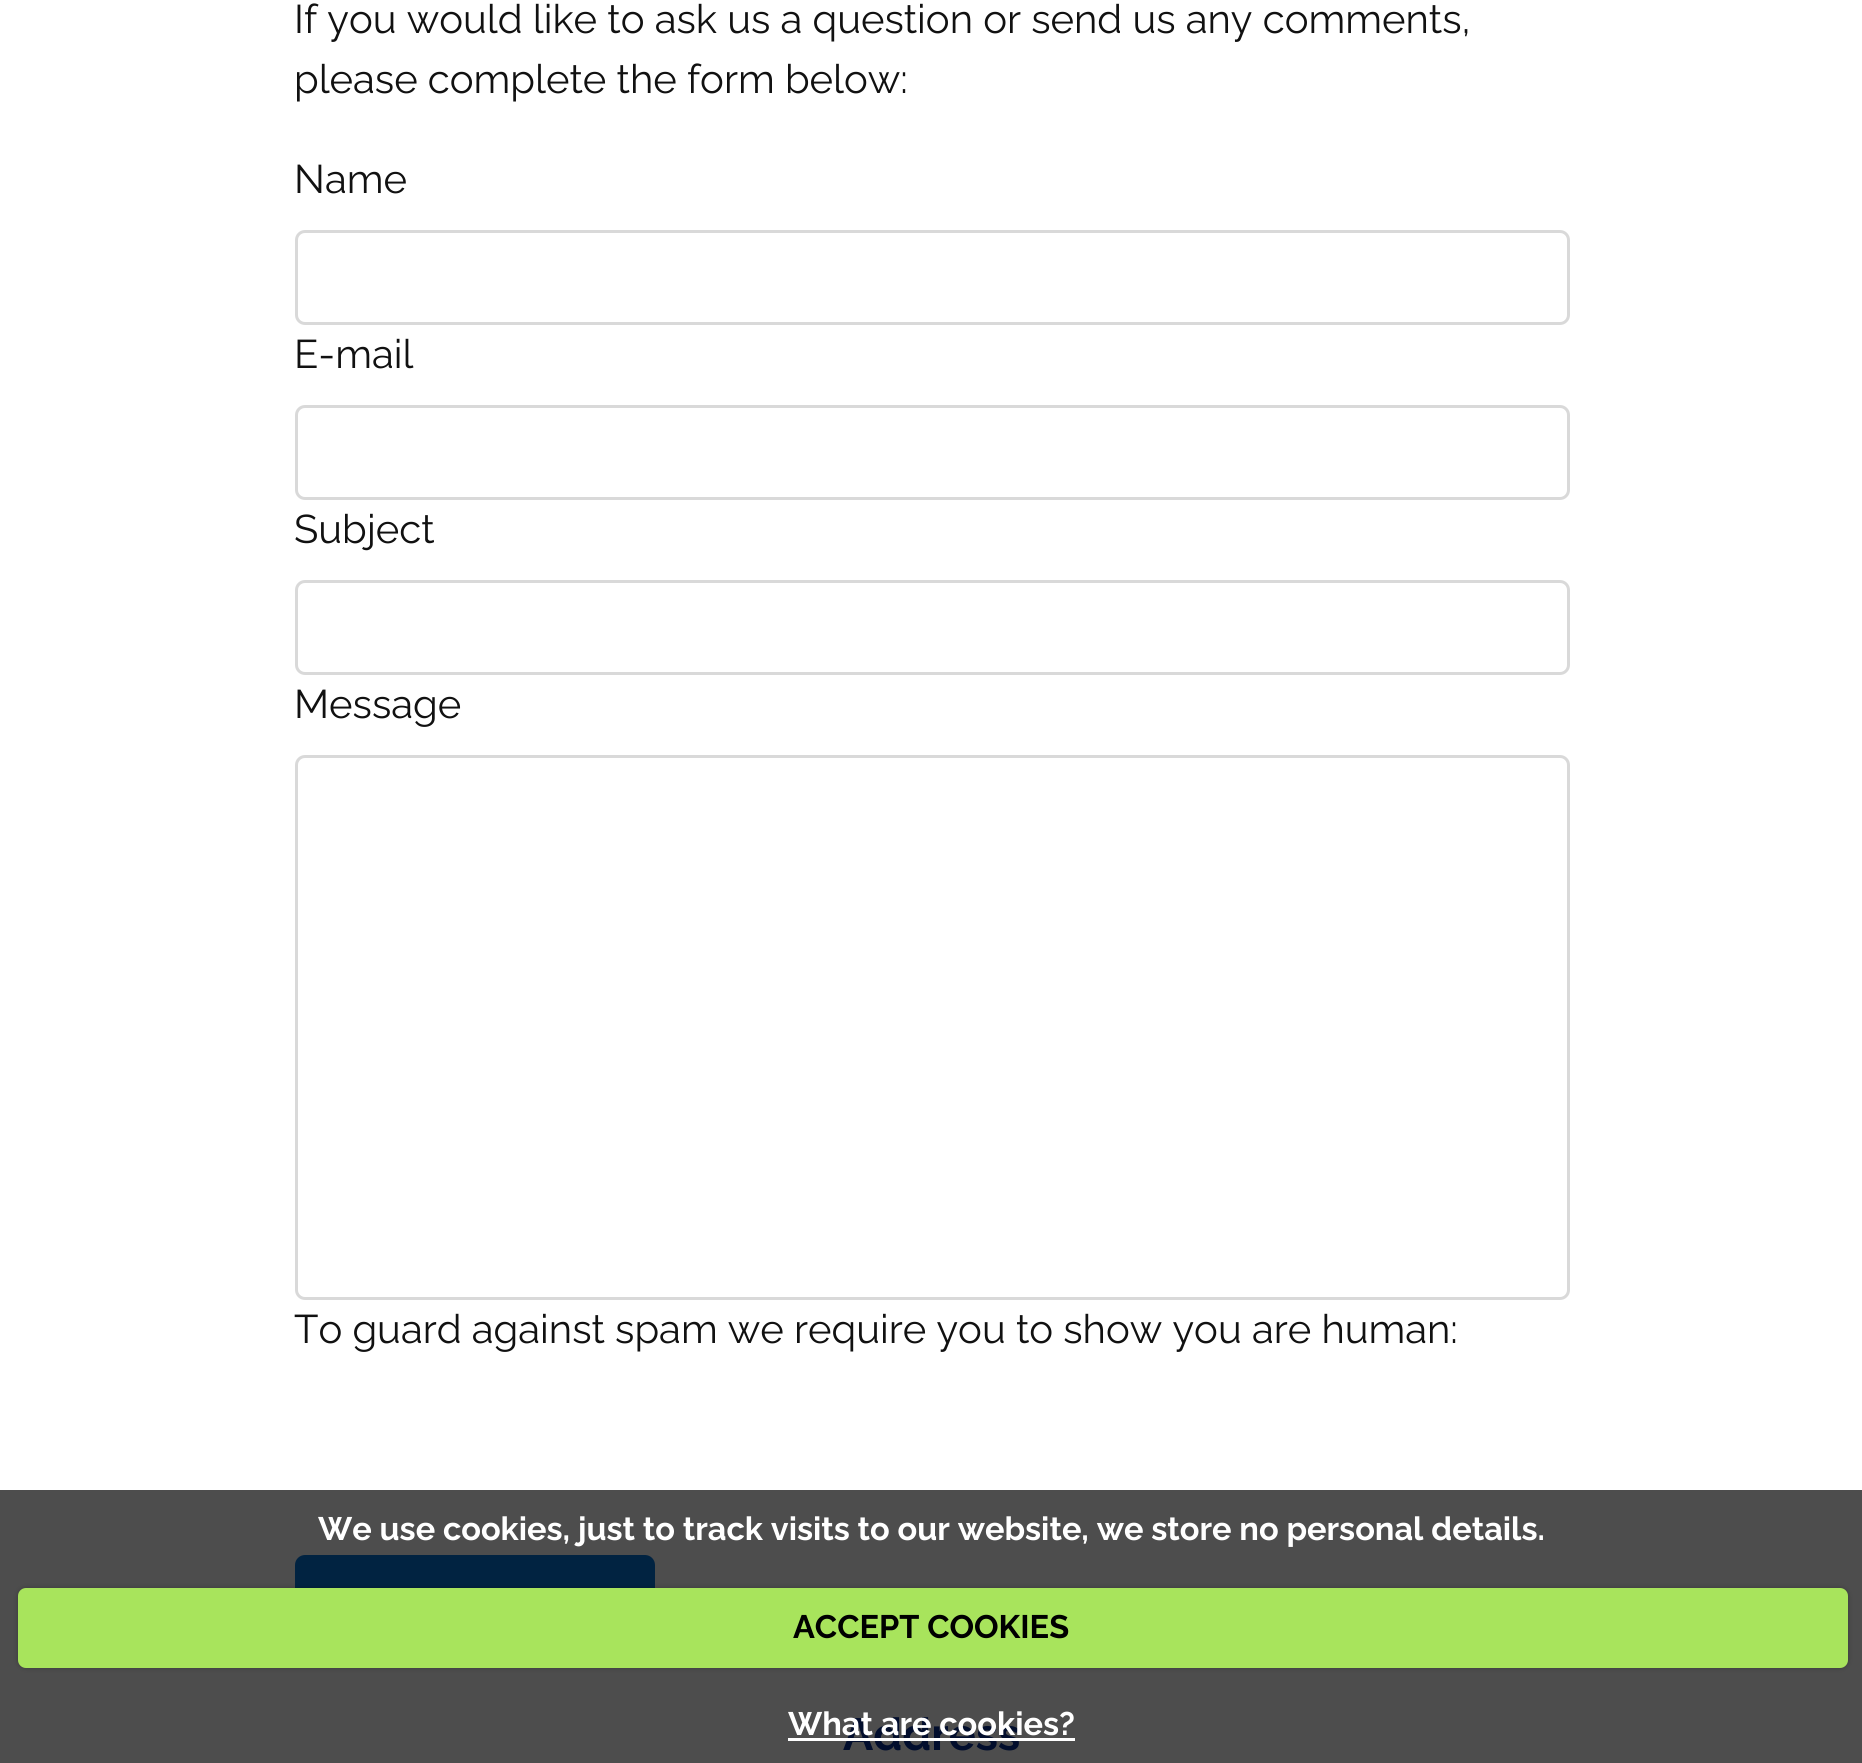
#include <cairo.h>
#include <math.h>
#include <stddef.h>

static cairo_t *ctx;

static void use_color(int r, int g, int b) {
    cairo_set_source_rgb(ctx, r / 255.0, g / 255.0, b / 255.0);
}

static void round_rect(double x, double y, double w, double h, double r) {
    cairo_new_sub_path(ctx);
    cairo_arc(ctx, x + w - r, y + h - r, r, 0, M_PI / 2);
    cairo_arc(ctx, x + r, y + h - r, r, M_PI / 2, M_PI);
    cairo_arc(ctx, x + r, y + r, r, M_PI, 1.5 * M_PI);
    cairo_arc(ctx, x + w - r, y + r, r, 1.5 * M_PI, 2 * M_PI);
    cairo_close_path(ctx);
}

static void shadow(double x, double y, double w, double h, double r, double blur, double alpha) {
    cairo_push_group_with_content(ctx, CAIRO_CONTENT_ALPHA);
    cairo_set_operator(ctx, CAIRO_OPERATOR_SOURCE);
    for (int i = 15; i >= -15 && fmin(w, h) + blur * i / 3 > 0; i -= 2) {
        double e = blur * i / 6;
        cairo_set_source_rgba(ctx, 0, 0, 0, alpha * erfc((i - 1) / 8.5) / 2);
        round_rect(x - e, y - e, w + 2 * e, h + 2 * e, fmax(0, fmin(r + e + blur * .6, fmin(w, h) / 2 + e)));
        cairo_fill(ctx);
    }
    cairo_pattern_t *soft = cairo_pop_group(ctx);
    cairo_mask(ctx, soft);
    cairo_pattern_destroy(soft);
}

int main(void) {
    cairo_surface_t *surface = cairo_image_surface_create(CAIRO_FORMAT_RGB24, 1862, 1763);
    ctx = cairo_create(surface);
    cairo_font_options_t *options = cairo_font_options_create();
    cairo_font_options_set_hint_metrics(options, CAIRO_HINT_METRICS_OFF);
    cairo_font_options_set_hint_style(options, CAIRO_HINT_STYLE_NONE);
    cairo_set_font_options(ctx, options);
    cairo_set_miter_limit(ctx, 4);
    use_color(255, 255, 255);
    cairo_paint(ctx);
    use_color(77, 77, 77);
    cairo_rectangle(ctx, 0, 1490, 1862, 273);
    cairo_fill(ctx);
    cairo_select_font_face(ctx, "Raleway", CAIRO_FONT_SLANT_NORMAL, CAIRO_FONT_WEIGHT_NORMAL);
    cairo_set_font_size(ctx, 40);
    use_color(17, 17, 17);
    cairo_move_to(ctx, 294, 33);
    cairo_show_text(ctx, "If you would like to ask us a question or send us any comments,");
    cairo_move_to(ctx, 294, 93);
    cairo_show_text(ctx, "please complete the form below:");
    cairo_move_to(ctx, 294, 193);
    cairo_show_text(ctx, "Name");
    round_rect(296.5, 231.5, 1272, 92, 8.5);
    use_color(217, 217, 217);
    cairo_set_line_width(ctx, 3);
    cairo_stroke(ctx);
    use_color(17, 17, 17);
    cairo_move_to(ctx, 294, 368);
    cairo_show_text(ctx, "E-mail");
    round_rect(296.5, 406.5, 1272, 92, 8.5);
    use_color(217, 217, 217);
    cairo_stroke(ctx);
    use_color(17, 17, 17);
    cairo_move_to(ctx, 294, 543);
    cairo_show_text(ctx, "Subject");
    round_rect(296.5, 581.5, 1272, 92, 8.5);
    use_color(217, 217, 217);
    cairo_stroke(ctx);
    use_color(17, 17, 17);
    cairo_move_to(ctx, 294, 718);
    cairo_show_text(ctx, "Message");
    round_rect(296.5, 756.5, 1272, 542, 8.5);
    use_color(217, 217, 217);
    cairo_stroke(ctx);
    use_color(17, 17, 17);
    cairo_move_to(ctx, 294, 1343);
    cairo_show_text(ctx, "To guard against spam we require you to show you are human:");
    use_color(1, 35, 65);
    round_rect(296.5, 1556.5, 357, 92, 8.5);
    cairo_fill_preserve(ctx);
    cairo_stroke(ctx);
    cairo_select_font_face(ctx, "Raleway", CAIRO_FONT_SLANT_NORMAL, CAIRO_FONT_WEIGHT_BOLD);
    cairo_set_font_size(ctx, 45);
    use_color(2, 14, 45);
    cairo_move_to(ctx, 843, 1750);
    cairo_show_text(ctx, "Address");
    cairo_set_font_size(ctx, 32.5);
    use_color(255, 255, 255);
    cairo_move_to(ctx, 318, 1540);
    cairo_show_text(ctx, "We use cookies, just to track visits to our website, we store no personal details.");
    use_color(0, 0, 0);
    shadow(18, 1588, 1830, 80, 8, 2.5, 0.25);
    use_color(168, 228, 92);
    round_rect(18, 1588, 1830, 80, 8);
    cairo_fill(ctx);
    use_color(0, 0, 0);
    cairo_move_to(ctx, 793, 1638);
    cairo_show_text(ctx, "ACCEPT COOKIES");
    use_color(255, 255, 255);
    cairo_move_to(ctx, 788, 1735);
    cairo_show_text(ctx, "What are cookies?");
    cairo_rectangle(ctx, 788, 1738, 287, 3);
    cairo_fill(ctx);
    cairo_surface_write_to_png(surface, "result.png");
    cairo_font_options_destroy(options);
    cairo_destroy(ctx);
    cairo_surface_destroy(surface);
    return 0;
}
